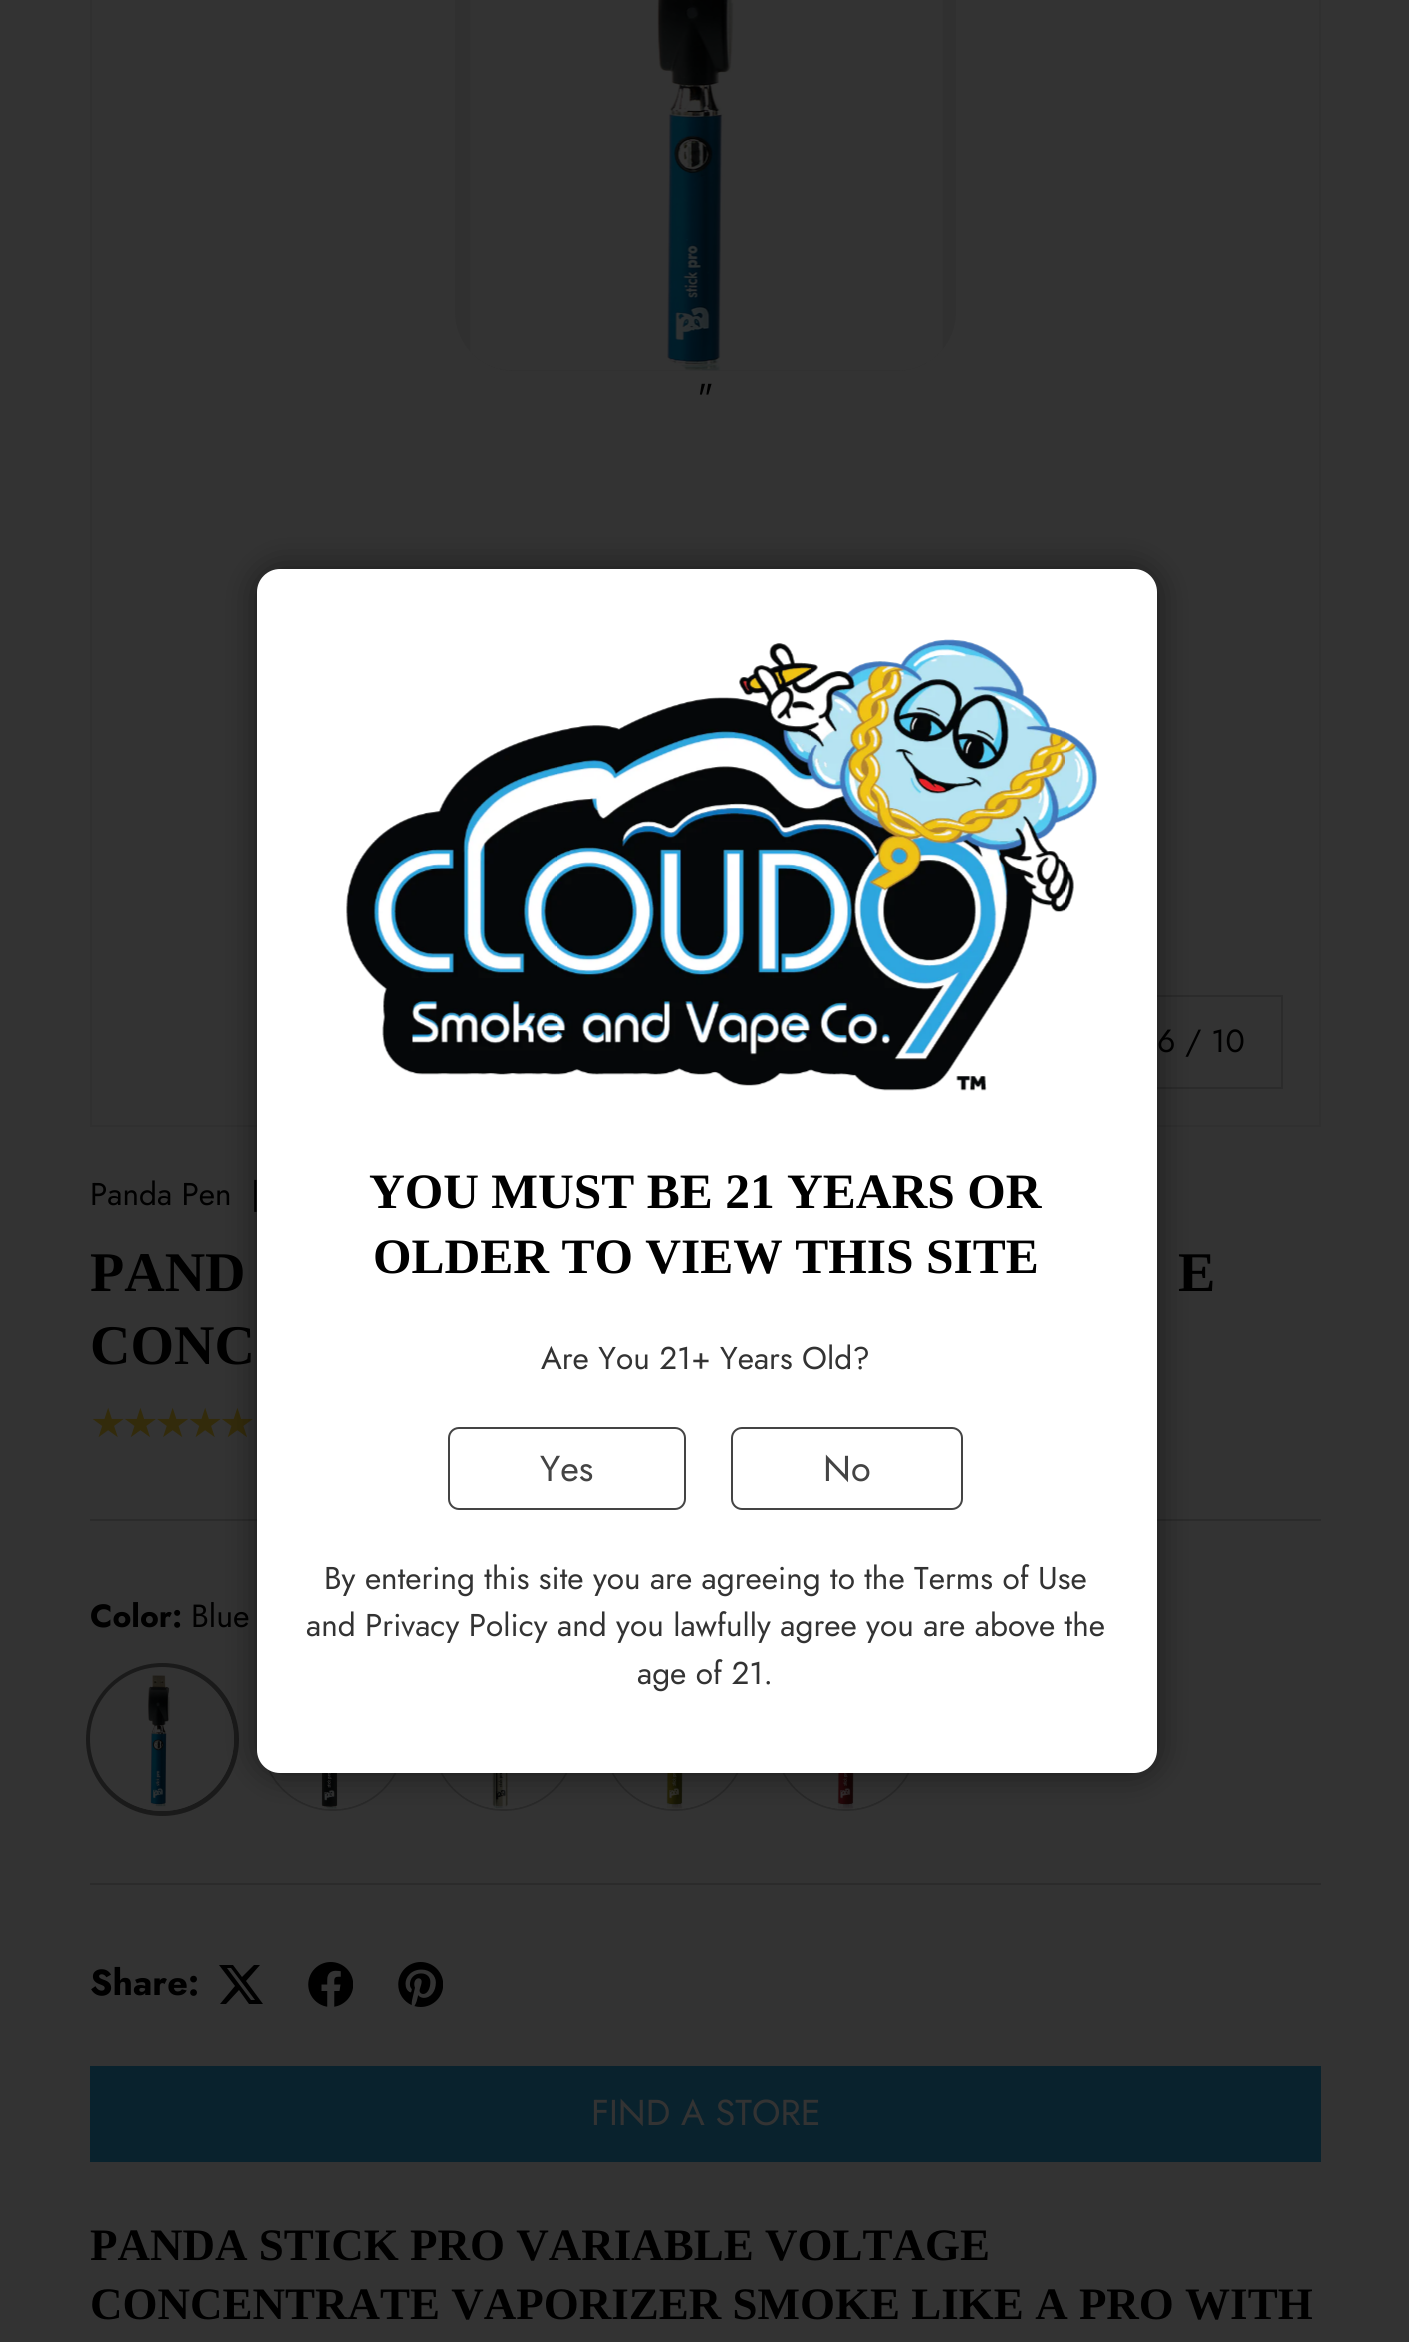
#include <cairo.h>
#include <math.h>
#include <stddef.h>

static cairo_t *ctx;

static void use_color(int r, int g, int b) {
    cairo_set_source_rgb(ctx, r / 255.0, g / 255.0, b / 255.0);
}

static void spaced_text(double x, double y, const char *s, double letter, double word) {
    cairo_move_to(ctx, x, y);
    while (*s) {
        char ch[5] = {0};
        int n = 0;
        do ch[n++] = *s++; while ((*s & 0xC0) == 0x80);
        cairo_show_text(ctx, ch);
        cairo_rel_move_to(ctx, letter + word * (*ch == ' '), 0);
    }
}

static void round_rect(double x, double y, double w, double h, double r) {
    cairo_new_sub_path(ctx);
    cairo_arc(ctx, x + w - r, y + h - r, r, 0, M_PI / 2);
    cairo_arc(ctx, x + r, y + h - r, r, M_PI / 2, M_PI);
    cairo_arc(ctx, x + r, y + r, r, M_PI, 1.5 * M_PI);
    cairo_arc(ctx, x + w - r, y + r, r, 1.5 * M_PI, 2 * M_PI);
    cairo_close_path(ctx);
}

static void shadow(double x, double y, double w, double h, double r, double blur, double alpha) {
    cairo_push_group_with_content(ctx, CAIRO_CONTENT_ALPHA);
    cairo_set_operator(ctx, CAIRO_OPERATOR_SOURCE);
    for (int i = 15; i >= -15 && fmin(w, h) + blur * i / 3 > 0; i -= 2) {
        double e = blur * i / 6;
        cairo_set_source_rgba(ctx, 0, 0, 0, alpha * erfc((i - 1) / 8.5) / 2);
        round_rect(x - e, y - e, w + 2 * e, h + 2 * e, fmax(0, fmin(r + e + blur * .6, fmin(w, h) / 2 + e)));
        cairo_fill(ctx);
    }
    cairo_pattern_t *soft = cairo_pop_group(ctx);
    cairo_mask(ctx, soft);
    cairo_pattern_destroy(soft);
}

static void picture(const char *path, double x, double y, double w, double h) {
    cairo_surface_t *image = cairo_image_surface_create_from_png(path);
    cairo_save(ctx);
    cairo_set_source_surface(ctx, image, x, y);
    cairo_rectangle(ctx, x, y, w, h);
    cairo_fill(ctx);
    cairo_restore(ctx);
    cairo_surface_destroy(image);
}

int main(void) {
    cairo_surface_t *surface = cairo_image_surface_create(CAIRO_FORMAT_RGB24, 1409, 2342);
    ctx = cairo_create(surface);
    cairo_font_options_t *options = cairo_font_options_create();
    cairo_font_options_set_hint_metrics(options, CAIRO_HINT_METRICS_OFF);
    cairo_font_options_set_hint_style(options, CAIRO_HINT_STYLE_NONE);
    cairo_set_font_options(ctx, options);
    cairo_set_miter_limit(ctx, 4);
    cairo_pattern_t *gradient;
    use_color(51, 51, 51);
    cairo_paint(ctx);
    cairo_rectangle(ctx, 91, -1, 1229, 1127);
    use_color(48, 48, 48);
    cairo_stroke(ctx);
    round_rect(455, -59, 501, 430, 59);
    cairo_fill(ctx);
    picture("img1.png", 470, 0, 473, 371);
    cairo_select_font_face(ctx, "Jost", CAIRO_FONT_SLANT_NORMAL, CAIRO_FONT_WEIGHT_NORMAL);
    cairo_set_font_size(ctx, 36);
    use_color(0, 0, 0);
    cairo_move_to(ctx, 697, 409);
    cairo_show_text(ctx, "\"");
    cairo_rectangle(ctx, 1119, 996, 163, 92);
    use_color(43, 43, 43);
    cairo_stroke(ctx);
    cairo_set_font_size(ctx, 32);
    use_color(0, 0, 0);
    cairo_move_to(ctx, 1157, 1052);
    cairo_show_text(ctx, "6 / 10");
    cairo_set_font_size(ctx, 31.5);
    cairo_move_to(ctx, 90, 1205);
    cairo_show_text(ctx, "Panda Pen");
    cairo_set_font_size(ctx, 32);
    cairo_move_to(ctx, 251, 1205);
    cairo_show_text(ctx, "|");
    cairo_select_font_face(ctx, "Liberation Serif", CAIRO_FONT_SLANT_NORMAL, CAIRO_FONT_WEIGHT_BOLD);
    cairo_set_font_size(ctx, 56);
    cairo_move_to(ctx, 90, 1291);
    cairo_show_text(ctx, "PAND");
    cairo_move_to(ctx, 1178, 1291);
    cairo_show_text(ctx, "E");
    cairo_move_to(ctx, 90, 1364);
    cairo_show_text(ctx, "CONC");
    cairo_select_font_face(ctx, "DejaVu Sans", CAIRO_FONT_SLANT_NORMAL, CAIRO_FONT_WEIGHT_NORMAL);
    cairo_set_font_size(ctx, 40.5);
    gradient = cairo_pattern_create_linear(90, 1423, 253, 1423);
    cairo_pattern_add_color_stop_rgba(gradient, 1, 0.2, 0.169, 0.043, 1);
    cairo_pattern_add_color_stop_rgba(gradient, 1, 0.2, 0.192, 0.169, 1);
    cairo_set_source(ctx, gradient);
    cairo_pattern_destroy(gradient);
    spaced_text(90, 1437, "★★★★★", -4, 0);
    use_color(43, 43, 43);
    cairo_rectangle(ctx, 90, 1519, 1231, 2);
    cairo_fill(ctx);
    cairo_select_font_face(ctx, "Jost", CAIRO_FONT_SLANT_NORMAL, CAIRO_FONT_WEIGHT_BOLD);
    cairo_set_font_size(ctx, 32);
    use_color(0, 0, 0);
    cairo_move_to(ctx, 90, 1627);
    cairo_show_text(ctx, "Color:");
    cairo_select_font_face(ctx, "Jost", CAIRO_FONT_SLANT_NORMAL, CAIRO_FONT_WEIGHT_NORMAL);
    cairo_move_to(ctx, 191, 1627);
    cairo_show_text(ctx, "Blue");
    cairo_new_path(ctx);
    cairo_arc(ctx, 162.5, 1739.5, 74, 0, 2 * M_PI);
    use_color(26, 26, 26);
    cairo_set_line_width(ctx, 5);
    cairo_stroke(ctx);
    cairo_arc(ctx, 162, 1739, 69.5, 0, 2 * M_PI);
    use_color(51, 51, 51);
    cairo_stroke(ctx);
    picture("img2.png", 148, 1675, 22, 132);
    cairo_arc(ctx, 333, 1739, 71, 0, 2 * M_PI);
    use_color(41, 41, 41);
    cairo_set_line_width(ctx, 2);
    cairo_stroke(ctx);
    use_color(51, 51, 51);
    round_rect(263, 1670, 140, 139, 69.5);
    cairo_fill(ctx);
    picture("img3.png", 274, 1772, 118, 37);
    cairo_arc(ctx, 504, 1739, 71, 0, 2 * M_PI);
    use_color(41, 41, 41);
    cairo_stroke(ctx);
    use_color(51, 51, 51);
    round_rect(434, 1670, 140, 139, 69.5);
    cairo_fill(ctx);
    picture("img4.png", 445, 1773, 118, 36);
    cairo_arc(ctx, 675, 1739, 71, 0, 2 * M_PI);
    use_color(41, 41, 41);
    cairo_stroke(ctx);
    use_color(51, 51, 51);
    round_rect(605, 1670, 140, 139, 69.5);
    cairo_fill(ctx);
    picture("img5.png", 616, 1773, 118, 36);
    cairo_arc(ctx, 846, 1739, 71, 0, 2 * M_PI);
    use_color(41, 41, 41);
    cairo_stroke(ctx);
    use_color(51, 51, 51);
    round_rect(776, 1670, 140, 139, 69.5);
    cairo_fill(ctx);
    picture("img6.png", 787, 1773, 118, 36);
    use_color(43, 43, 43);
    cairo_rectangle(ctx, 90, 1883, 1231, 2);
    cairo_fill(ctx);
    cairo_select_font_face(ctx, "Jost", CAIRO_FONT_SLANT_NORMAL, CAIRO_FONT_WEIGHT_BOLD);
    cairo_set_font_size(ctx, 36);
    use_color(0, 0, 0);
    cairo_move_to(ctx, 90, 1995);
    cairo_show_text(ctx, "Share:");
    cairo_new_path(ctx);
    cairo_move_to(ctx, 254, 1965);
    cairo_line_to(ctx, 260, 1965);
    cairo_line_to(ctx, 246, 1981);
    cairo_line_to(ctx, 263, 2004);
    cairo_line_to(ctx, 249, 2004);
    cairo_line_to(ctx, 239, 1990);
    cairo_line_to(ctx, 226, 2004);
    cairo_line_to(ctx, 220, 2004);
    cairo_line_to(ctx, 235, 1986);
    cairo_line_to(ctx, 219, 1965);
    cairo_line_to(ctx, 233, 1965);
    cairo_line_to(ctx, 242, 1977);
    cairo_close_path(ctx);
    cairo_move_to(ctx, 251, 2000);
    cairo_line_to(ctx, 255, 2000);
    cairo_line_to(ctx, 231, 1968);
    cairo_line_to(ctx, 227, 1968);
    cairo_close_path(ctx);
    cairo_fill(ctx);
    picture("img7.png", 308, 1962, 45, 45);
    picture("img8.png", 398, 1962, 45, 45);
    use_color(9, 34, 45);
    cairo_rectangle(ctx, 90, 2066, 1231, 96);
    cairo_fill(ctx);
    cairo_select_font_face(ctx, "Jost", CAIRO_FONT_SLANT_NORMAL, CAIRO_FONT_WEIGHT_NORMAL);
    use_color(51, 51, 51);
    cairo_move_to(ctx, 591, 2125);
    cairo_show_text(ctx, "FIND A STORE");
    cairo_select_font_face(ctx, "Liberation Serif", CAIRO_FONT_SLANT_NORMAL, CAIRO_FONT_WEIGHT_BOLD);
    cairo_set_font_size(ctx, 45);
    use_color(0, 0, 0);
    cairo_move_to(ctx, 90, 2260);
    cairo_show_text(ctx, "PANDA STICK PRO VARIABLE VOLTAGE");
    cairo_move_to(ctx, 90, 2319);
    cairo_show_text(ctx, "CONCENTRATE VAPORIZER SMOKE LIKE A PRO WITH");
    use_color(0, 0, 0);
    shadow(257, 569, 900, 1204, 23, 17, 0.5);
    use_color(255, 255, 255);
    round_rect(257, 569, 900, 1204, 23);
    cairo_fill(ctx);
    picture("img9.png", 346, 639, 751, 452);
    cairo_set_font_size(ctx, 49.5);
    use_color(0, 0, 0);
    cairo_move_to(ctx, 369, 1208);
    cairo_show_text(ctx, "YOU MUST BE 21 YEARS OR");
    cairo_move_to(ctx, 373, 1273);
    cairo_show_text(ctx, "OLDER TO VIEW THIS SITE");
    cairo_select_font_face(ctx, "Jost", CAIRO_FONT_SLANT_NORMAL, CAIRO_FONT_WEIGHT_NORMAL);
    cairo_set_font_size(ctx, 31.5);
    use_color(51, 51, 51);
    cairo_move_to(ctx, 541, 1369);
    cairo_show_text(ctx, "Are You 21+ Years Old?");
    round_rect(449, 1428, 236, 81, 10);
    use_color(68, 68, 68);
    cairo_stroke(ctx);
    cairo_set_font_size(ctx, 36);
    cairo_move_to(ctx, 540, 1481);
    cairo_show_text(ctx, "Yes");
    round_rect(732, 1428, 230, 81, 10);
    cairo_stroke(ctx);
    cairo_move_to(ctx, 823, 1481);
    cairo_show_text(ctx, "No");
    cairo_set_font_size(ctx, 31.5);
    use_color(51, 51, 51);
    cairo_move_to(ctx, 324, 1589);
    cairo_show_text(ctx, "By entering this site you are agreeing to the Terms of Use");
    cairo_move_to(ctx, 306, 1636);
    cairo_show_text(ctx, "and Privacy Policy and you lawfully agree you are above the");
    cairo_move_to(ctx, 637, 1684);
    cairo_show_text(ctx, "age of 21.");
    cairo_surface_write_to_png(surface, "result.png");
    cairo_font_options_destroy(options);
    cairo_destroy(ctx);
    cairo_surface_destroy(surface);
    return 0;
}
